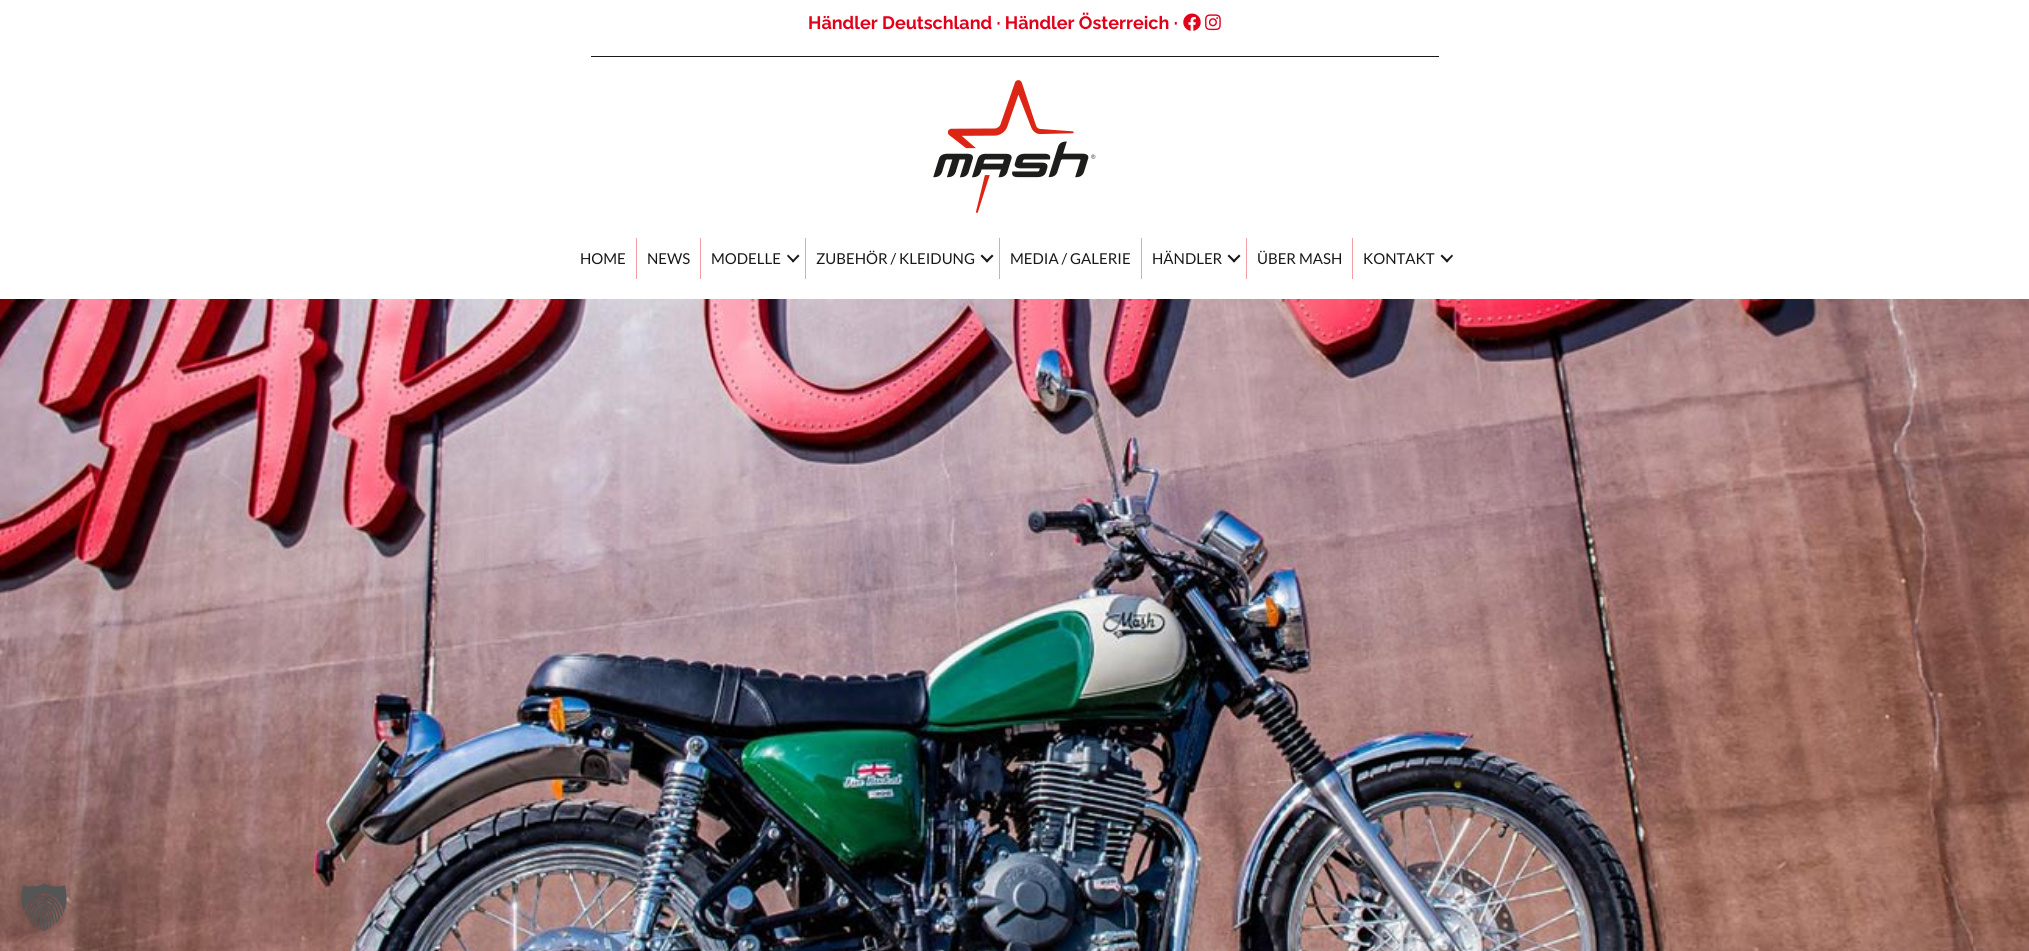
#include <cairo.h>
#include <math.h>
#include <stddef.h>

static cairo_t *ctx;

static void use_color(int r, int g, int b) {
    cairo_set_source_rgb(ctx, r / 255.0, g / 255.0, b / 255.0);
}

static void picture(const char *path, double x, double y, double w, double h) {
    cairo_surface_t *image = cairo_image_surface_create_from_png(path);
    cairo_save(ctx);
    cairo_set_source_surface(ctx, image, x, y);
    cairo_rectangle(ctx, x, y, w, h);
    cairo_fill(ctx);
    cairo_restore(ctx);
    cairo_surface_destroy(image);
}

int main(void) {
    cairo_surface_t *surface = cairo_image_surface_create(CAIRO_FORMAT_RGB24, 2029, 951);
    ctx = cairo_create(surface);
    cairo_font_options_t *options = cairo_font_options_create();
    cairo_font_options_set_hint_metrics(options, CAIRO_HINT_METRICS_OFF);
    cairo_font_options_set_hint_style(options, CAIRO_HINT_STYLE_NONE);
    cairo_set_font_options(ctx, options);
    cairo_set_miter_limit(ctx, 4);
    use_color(255, 255, 255);
    cairo_paint(ctx);
    cairo_select_font_face(ctx, "Raleway", CAIRO_FONT_SLANT_NORMAL, CAIRO_FONT_WEIGHT_BOLD);
    cairo_set_font_size(ctx, 18);
    use_color(226, 0, 26);
    cairo_move_to(ctx, 808, 29);
    cairo_show_text(ctx, "Händler Deutschland · Händler Österreich ·");
    picture("img1.png", 1183, 13, 18, 18);
    picture("img2.png", 1205, 14, 16, 17);
    use_color(26, 23, 27);
    cairo_rectangle(ctx, 591, 56, 848, 1);
    cairo_fill(ctx);
    picture("img3.png", 933, 80, 163, 133);
    cairo_select_font_face(ctx, "Lato", CAIRO_FONT_SLANT_NORMAL, CAIRO_FONT_WEIGHT_NORMAL);
    cairo_set_font_size(ctx, 15);
    cairo_move_to(ctx, 580, 264);
    cairo_show_text(ctx, "HOME");
    use_color(244, 158, 168);
    cairo_rectangle(ctx, 636, 238, 1, 41);
    cairo_fill(ctx);
    use_color(26, 23, 27);
    cairo_move_to(ctx, 647, 264);
    cairo_show_text(ctx, "NEWS");
    use_color(244, 158, 168);
    cairo_rectangle(ctx, 700, 238, 1, 41);
    cairo_fill(ctx);
    use_color(26, 23, 27);
    cairo_move_to(ctx, 711, 264);
    cairo_show_text(ctx, "MODELLE");
    cairo_new_path(ctx);
    cairo_move_to(ctx, 798, 254.5);
    cairo_line_to(ctx, 799.5, 256);
    cairo_line_to(ctx, 793, 262.5);
    cairo_line_to(ctx, 792, 261);
    cairo_close_path(ctx);
    cairo_fill(ctx);
    cairo_new_path(ctx);
    cairo_move_to(ctx, 788, 254.5);
    cairo_line_to(ctx, 794.5, 261);
    cairo_line_to(ctx, 793, 262.5);
    cairo_line_to(ctx, 787, 256);
    cairo_close_path(ctx);
    cairo_fill(ctx);
    use_color(244, 158, 168);
    cairo_rectangle(ctx, 805, 238, 1, 41);
    cairo_fill(ctx);
    use_color(26, 23, 27);
    cairo_move_to(ctx, 816, 264);
    cairo_show_text(ctx, "ZUBEHÖR / KLEIDUNG");
    cairo_new_path(ctx);
    cairo_move_to(ctx, 992, 254.5);
    cairo_line_to(ctx, 993.5, 256);
    cairo_line_to(ctx, 987, 262.5);
    cairo_line_to(ctx, 985.5, 261);
    cairo_close_path(ctx);
    cairo_fill(ctx);
    cairo_new_path(ctx);
    cairo_move_to(ctx, 982, 254.5);
    cairo_line_to(ctx, 988.5, 261);
    cairo_line_to(ctx, 987, 262.5);
    cairo_line_to(ctx, 980.5, 256);
    cairo_close_path(ctx);
    cairo_fill(ctx);
    use_color(244, 158, 168);
    cairo_rectangle(ctx, 999, 238, 1, 41);
    cairo_fill(ctx);
    use_color(26, 23, 27);
    cairo_move_to(ctx, 1010, 264);
    cairo_show_text(ctx, "MEDIA / GALERIE");
    use_color(244, 158, 168);
    cairo_rectangle(ctx, 1141, 238, 1, 41);
    cairo_fill(ctx);
    use_color(26, 23, 27);
    cairo_move_to(ctx, 1152, 264);
    cairo_show_text(ctx, "HÄNDLER");
    cairo_new_path(ctx);
    cairo_move_to(ctx, 1239, 254.5);
    cairo_line_to(ctx, 1240.5, 256);
    cairo_line_to(ctx, 1234, 262.5);
    cairo_line_to(ctx, 1232.5, 261);
    cairo_close_path(ctx);
    cairo_fill(ctx);
    cairo_new_path(ctx);
    cairo_move_to(ctx, 1229, 254.5);
    cairo_line_to(ctx, 1235.5, 261);
    cairo_line_to(ctx, 1234, 262.5);
    cairo_line_to(ctx, 1227.5, 256);
    cairo_close_path(ctx);
    cairo_fill(ctx);
    use_color(244, 158, 168);
    cairo_rectangle(ctx, 1246, 238, 1, 41);
    cairo_fill(ctx);
    use_color(26, 23, 27);
    cairo_move_to(ctx, 1257, 264);
    cairo_show_text(ctx, "ÜBER MASH");
    use_color(244, 158, 168);
    cairo_rectangle(ctx, 1352, 238, 1, 41);
    cairo_fill(ctx);
    use_color(26, 23, 27);
    cairo_move_to(ctx, 1363, 264);
    cairo_show_text(ctx, "KONTAKT");
    cairo_new_path(ctx);
    cairo_move_to(ctx, 1452, 254.5);
    cairo_line_to(ctx, 1453, 256);
    cairo_line_to(ctx, 1447, 262.5);
    cairo_line_to(ctx, 1445.5, 261);
    cairo_close_path(ctx);
    cairo_fill(ctx);
    cairo_new_path(ctx);
    cairo_move_to(ctx, 1442, 254.5);
    cairo_line_to(ctx, 1448.5, 261);
    cairo_line_to(ctx, 1447, 262.5);
    cairo_line_to(ctx, 1440.5, 256);
    cairo_close_path(ctx);
    cairo_fill(ctx);
    picture("img4.png", 0, 299, 2029, 652);
    picture("img5.png", 17, 880, 54, 52);
    cairo_surface_write_to_png(surface, "result.png");
    cairo_font_options_destroy(options);
    cairo_destroy(ctx);
    cairo_surface_destroy(surface);
    return 0;
}
